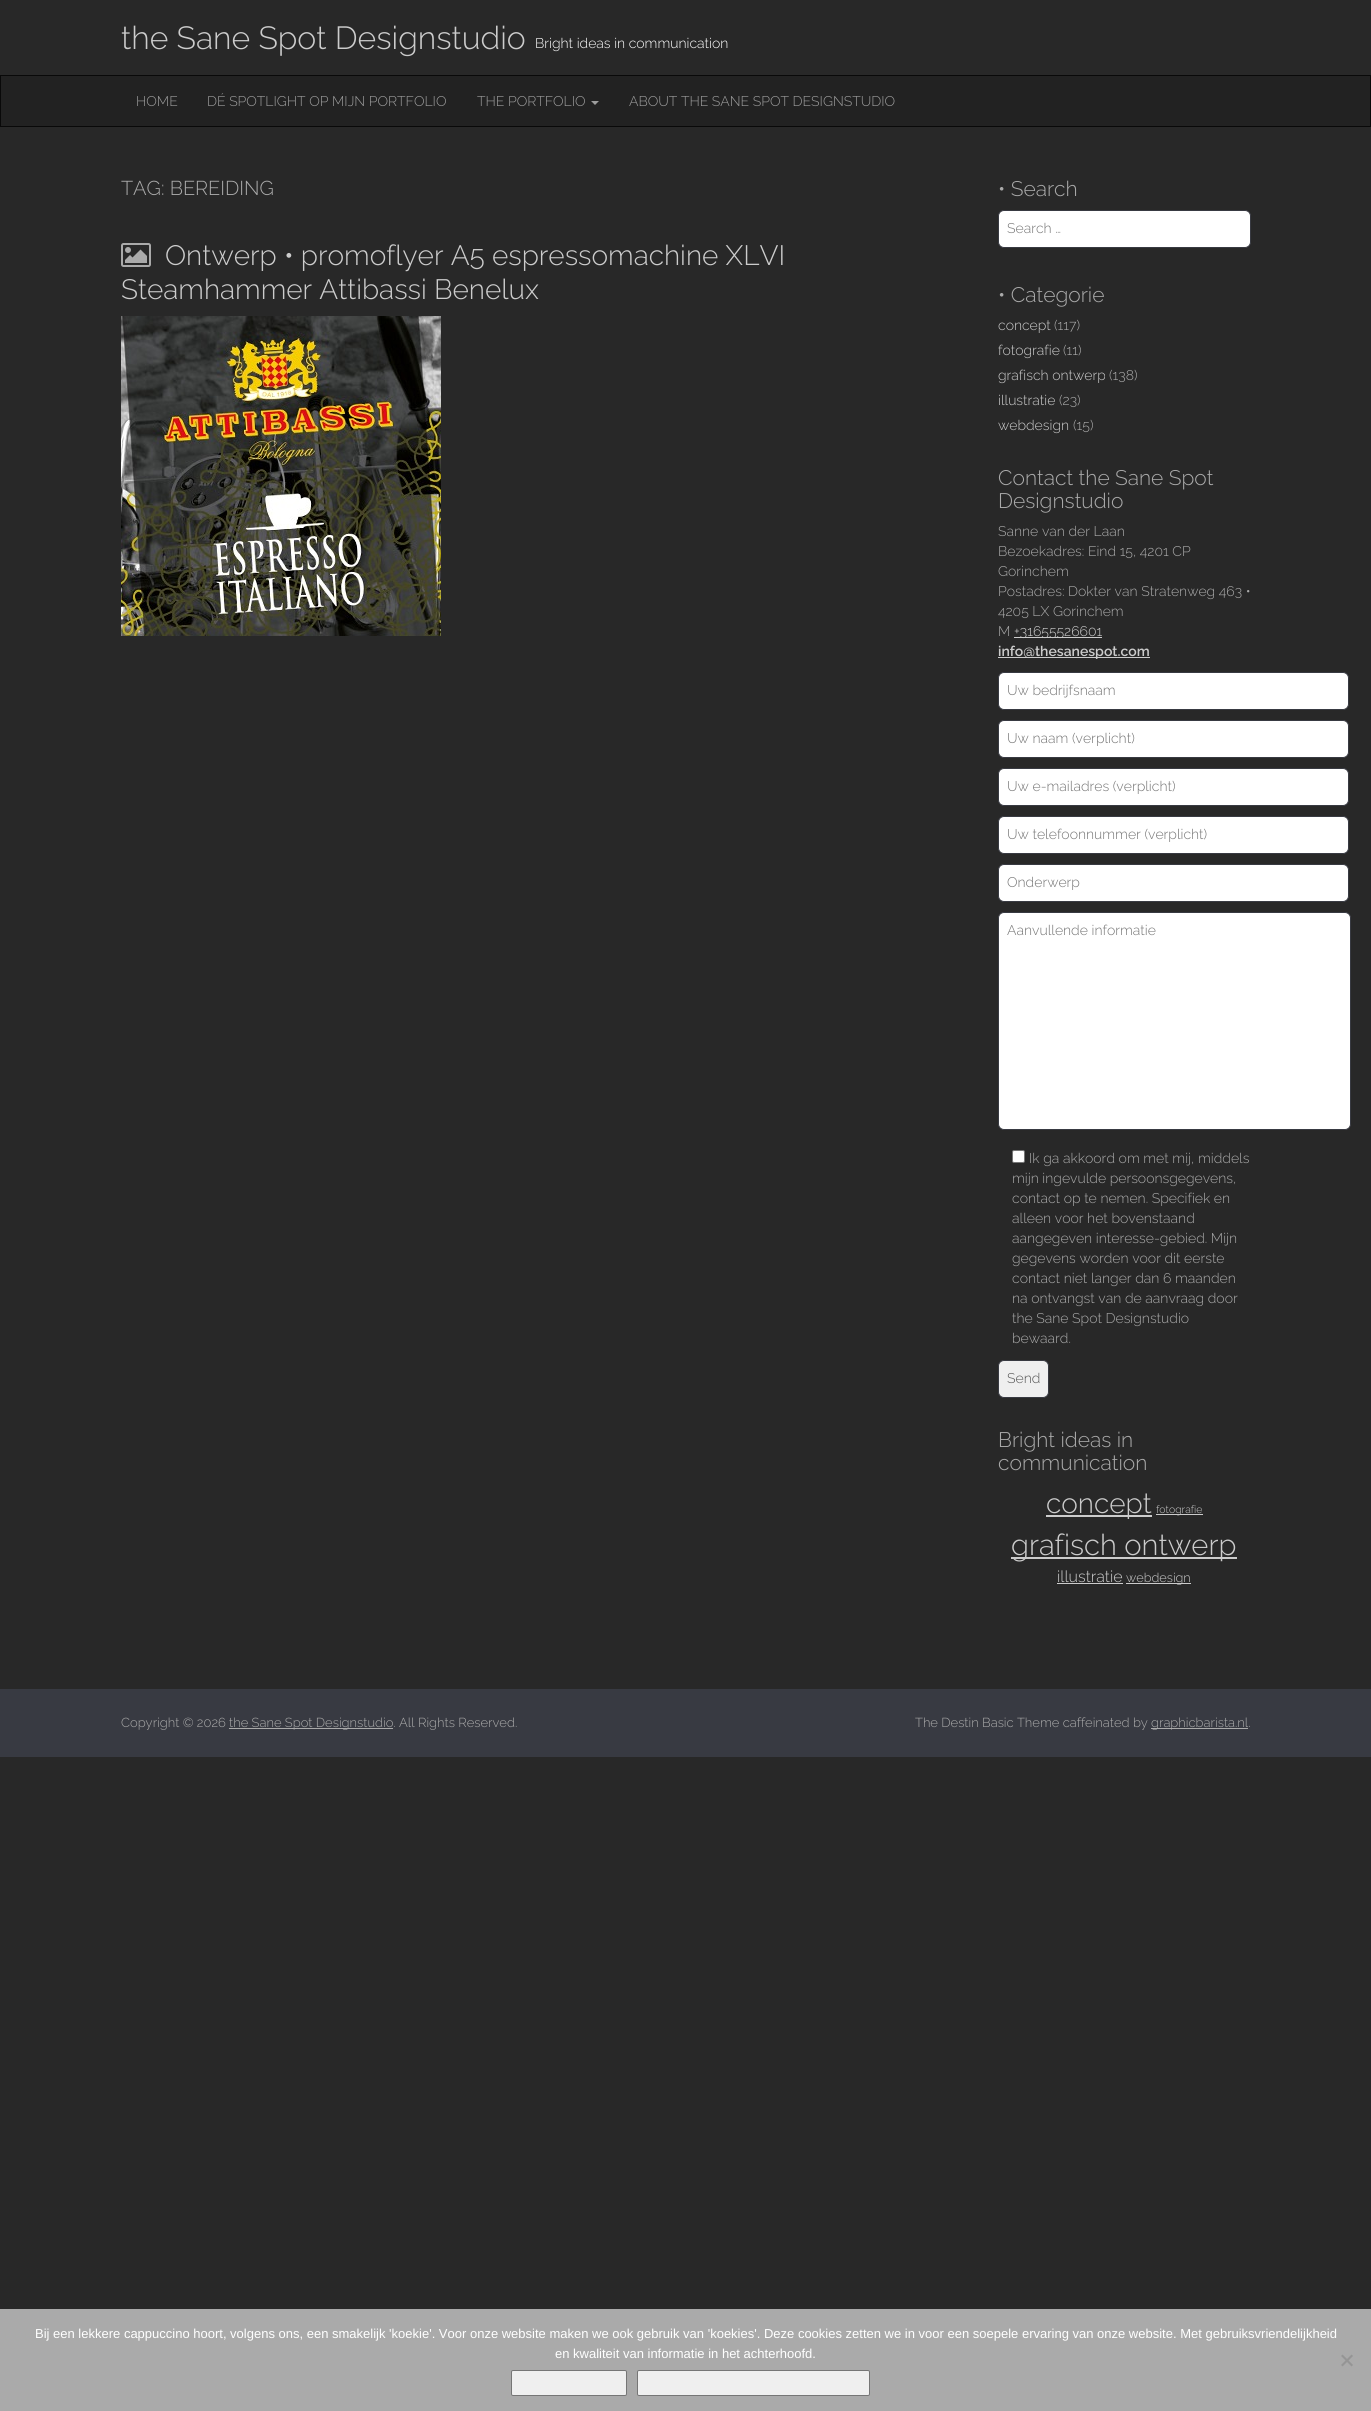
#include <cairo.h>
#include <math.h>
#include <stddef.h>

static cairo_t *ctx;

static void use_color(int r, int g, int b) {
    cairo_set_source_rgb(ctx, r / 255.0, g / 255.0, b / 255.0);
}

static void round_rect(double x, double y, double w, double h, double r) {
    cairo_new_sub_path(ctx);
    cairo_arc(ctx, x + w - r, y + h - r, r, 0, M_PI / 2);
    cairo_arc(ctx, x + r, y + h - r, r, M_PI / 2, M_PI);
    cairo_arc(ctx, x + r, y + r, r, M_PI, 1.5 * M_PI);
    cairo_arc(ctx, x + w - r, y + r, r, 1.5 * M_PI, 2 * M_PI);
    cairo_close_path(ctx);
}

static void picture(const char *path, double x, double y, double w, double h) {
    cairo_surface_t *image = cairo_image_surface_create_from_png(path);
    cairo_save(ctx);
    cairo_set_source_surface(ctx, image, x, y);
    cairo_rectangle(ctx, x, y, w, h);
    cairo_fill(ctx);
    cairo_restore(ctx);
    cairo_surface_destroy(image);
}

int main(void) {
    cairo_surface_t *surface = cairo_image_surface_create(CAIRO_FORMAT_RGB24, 1371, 2411);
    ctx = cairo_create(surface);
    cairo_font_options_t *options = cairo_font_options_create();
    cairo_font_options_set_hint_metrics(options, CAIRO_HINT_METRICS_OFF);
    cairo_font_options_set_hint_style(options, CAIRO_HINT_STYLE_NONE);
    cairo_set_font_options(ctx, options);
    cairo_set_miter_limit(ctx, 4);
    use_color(40, 40, 40);
    cairo_paint(ctx);
    cairo_select_font_face(ctx, "Raleway Light", CAIRO_FONT_SLANT_NORMAL, CAIRO_FONT_WEIGHT_NORMAL);
    cairo_set_font_size(ctx, 32);
    use_color(204, 204, 204);
    cairo_move_to(ctx, 121, 49);
    cairo_show_text(ctx, "the Sane Spot Designstudio");
    cairo_set_font_size(ctx, 14);
    use_color(255, 255, 255);
    cairo_move_to(ctx, 535, 48);
    cairo_show_text(ctx, "Bright ideas in communication");
    use_color(34, 34, 34);
    cairo_rectangle(ctx, 0.5, 75.5, 1370, 51);
    cairo_fill_preserve(ctx);
    use_color(9, 9, 9);
    cairo_set_line_width(ctx, 1);
    cairo_stroke(ctx);
    use_color(157, 157, 157);
    cairo_move_to(ctx, 136, 106);
    cairo_show_text(ctx, "HOME");
    cairo_move_to(ctx, 207, 106);
    cairo_show_text(ctx, "DÉ SPOTLIGHT OP MIJN PORTFOLIO");
    cairo_move_to(ctx, 477, 106);
    cairo_show_text(ctx, "THE PORTFOLIO");
    cairo_new_path(ctx);
    cairo_move_to(ctx, 591, 101);
    cairo_line_to(ctx, 599, 101);
    cairo_line_to(ctx, 595, 105);
    cairo_close_path(ctx);
    cairo_fill(ctx);
    cairo_move_to(ctx, 629, 106);
    cairo_show_text(ctx, "ABOUT THE SANE SPOT DESIGNSTUDIO");
    cairo_set_font_size(ctx, 20);
    use_color(170, 170, 170);
    cairo_move_to(ctx, 121, 195);
    cairo_show_text(ctx, "TAG: BEREIDING");
    picture("img1.png", 121, 243, 30, 24);
    cairo_set_font_size(ctx, 28);
    use_color(204, 204, 204);
    cairo_move_to(ctx, 165, 265);
    cairo_show_text(ctx, "Ontwerp • promoflyer A5 espressomachine XLVI");
    cairo_move_to(ctx, 121, 299);
    cairo_show_text(ctx, "Steamhammer Attibassi Benelux");
    picture("img2.png", 121, 316, 320, 320);
    cairo_set_font_size(ctx, 21);
    use_color(170, 170, 170);
    cairo_move_to(ctx, 998, 196);
    cairo_show_text(ctx, "• Search");
    use_color(255, 255, 255);
    round_rect(998.5, 210.5, 252, 37, 5.5);
    cairo_fill_preserve(ctx);
    use_color(56, 58, 66);
    cairo_stroke(ctx);
    cairo_set_font_size(ctx, 14);
    use_color(117, 117, 117);
    cairo_move_to(ctx, 1007, 233);
    cairo_show_text(ctx, "Search …");
    cairo_set_font_size(ctx, 21);
    use_color(170, 170, 170);
    cairo_move_to(ctx, 998, 302);
    cairo_show_text(ctx, "• Categorie");
    cairo_set_font_size(ctx, 14);
    use_color(204, 204, 204);
    cairo_move_to(ctx, 998, 330);
    cairo_show_text(ctx, "concept");
    use_color(170, 170, 170);
    cairo_move_to(ctx, 1054, 330);
    cairo_show_text(ctx, "(117)");
    use_color(204, 204, 204);
    cairo_move_to(ctx, 998, 355);
    cairo_show_text(ctx, "fotografie");
    use_color(170, 170, 170);
    cairo_move_to(ctx, 1063, 355);
    cairo_show_text(ctx, "(11)");
    use_color(204, 204, 204);
    cairo_move_to(ctx, 998, 380);
    cairo_show_text(ctx, "grafisch ontwerp");
    use_color(170, 170, 170);
    cairo_move_to(ctx, 1109, 380);
    cairo_show_text(ctx, "(138)");
    use_color(204, 204, 204);
    cairo_move_to(ctx, 998, 405);
    cairo_show_text(ctx, "illustratie");
    use_color(170, 170, 170);
    cairo_move_to(ctx, 1059, 405);
    cairo_show_text(ctx, "(23)");
    use_color(204, 204, 204);
    cairo_move_to(ctx, 998, 430);
    cairo_show_text(ctx, "webdesign");
    use_color(170, 170, 170);
    cairo_move_to(ctx, 1073, 430);
    cairo_show_text(ctx, "(15)");
    cairo_set_font_size(ctx, 21);
    cairo_move_to(ctx, 998, 485);
    cairo_show_text(ctx, "Contact the Sane Spot");
    cairo_move_to(ctx, 998, 508);
    cairo_show_text(ctx, "Designstudio");
    cairo_set_font_size(ctx, 14);
    cairo_move_to(ctx, 998, 536);
    cairo_show_text(ctx, "Sanne van der Laan");
    cairo_move_to(ctx, 998, 556);
    cairo_show_text(ctx, "Bezoekadres: Eind 15, 4201 CP");
    cairo_move_to(ctx, 998, 576);
    cairo_show_text(ctx, "Gorinchem");
    cairo_move_to(ctx, 998, 596);
    cairo_show_text(ctx, "Postadres: Dokter van Stratenweg 463 •");
    cairo_move_to(ctx, 998, 616);
    cairo_show_text(ctx, "4205 LX Gorinchem");
    cairo_move_to(ctx, 998, 636);
    cairo_show_text(ctx, "M");
    use_color(204, 204, 204);
    cairo_rectangle(ctx, 1014, 637, 88, 1);
    cairo_fill(ctx);
    cairo_move_to(ctx, 1014, 636);
    cairo_show_text(ctx, "+31655526601");
    cairo_rectangle(ctx, 998, 657, 152, 1);
    cairo_fill(ctx);
    cairo_select_font_face(ctx, "Raleway SemiBold", CAIRO_FONT_SLANT_NORMAL, CAIRO_FONT_WEIGHT_NORMAL);
    cairo_move_to(ctx, 998, 656);
    cairo_show_text(ctx, "info@thesanespot.com");
    use_color(255, 255, 255);
    round_rect(998.5, 672.5, 350, 37, 5.5);
    cairo_fill_preserve(ctx);
    use_color(56, 58, 66);
    cairo_stroke(ctx);
    cairo_select_font_face(ctx, "Raleway Light", CAIRO_FONT_SLANT_NORMAL, CAIRO_FONT_WEIGHT_NORMAL);
    use_color(117, 117, 117);
    cairo_move_to(ctx, 1007, 695);
    cairo_show_text(ctx, "Uw bedrijfsnaam");
    use_color(255, 255, 255);
    round_rect(998.5, 720.5, 350, 37, 5.5);
    cairo_fill_preserve(ctx);
    use_color(56, 58, 66);
    cairo_stroke(ctx);
    use_color(117, 117, 117);
    cairo_move_to(ctx, 1007, 743);
    cairo_show_text(ctx, "Uw naam (verplicht)");
    use_color(255, 255, 255);
    round_rect(998.5, 768.5, 350, 37, 5.5);
    cairo_fill_preserve(ctx);
    use_color(56, 58, 66);
    cairo_stroke(ctx);
    use_color(117, 117, 117);
    cairo_move_to(ctx, 1007, 791);
    cairo_show_text(ctx, "Uw e-mailadres (verplicht)");
    use_color(255, 255, 255);
    round_rect(998.5, 816.5, 350, 37, 5.5);
    cairo_fill_preserve(ctx);
    use_color(56, 58, 66);
    cairo_stroke(ctx);
    use_color(117, 117, 117);
    cairo_move_to(ctx, 1007, 839);
    cairo_show_text(ctx, "Uw telefoonnummer (verplicht)");
    use_color(255, 255, 255);
    round_rect(998.5, 864.5, 350, 37, 5.5);
    cairo_fill_preserve(ctx);
    use_color(56, 58, 66);
    cairo_stroke(ctx);
    use_color(117, 117, 117);
    cairo_move_to(ctx, 1007, 887);
    cairo_show_text(ctx, "Onderwerp");
    use_color(255, 255, 255);
    round_rect(998.5, 912.5, 352, 217, 5.5);
    cairo_fill_preserve(ctx);
    use_color(56, 58, 66);
    cairo_stroke(ctx);
    use_color(117, 117, 117);
    cairo_move_to(ctx, 1007, 935);
    cairo_show_text(ctx, "Aanvullende informatie");
    use_color(255, 255, 255);
    round_rect(1012.5, 1150.5, 12, 12, 1.5);
    cairo_fill_preserve(ctx);
    use_color(118, 118, 118);
    cairo_stroke(ctx);
    use_color(170, 170, 170);
    cairo_move_to(ctx, 1029, 1163);
    cairo_show_text(ctx, "Ik ga akkoord om met mij, middels");
    cairo_move_to(ctx, 1012, 1183);
    cairo_show_text(ctx, "mijn ingevulde persoonsgegevens,");
    cairo_move_to(ctx, 1012, 1203);
    cairo_show_text(ctx, "contact op te nemen. Specifiek en");
    cairo_move_to(ctx, 1012, 1223);
    cairo_show_text(ctx, "alleen voor het bovenstaand");
    cairo_move_to(ctx, 1012, 1243);
    cairo_show_text(ctx, "aangegeven interesse-gebied. Mijn");
    cairo_move_to(ctx, 1012, 1263);
    cairo_show_text(ctx, "gegevens worden voor dit eerste");
    cairo_move_to(ctx, 1012, 1283);
    cairo_show_text(ctx, "contact niet langer dan 6 maanden");
    cairo_move_to(ctx, 1012, 1303);
    cairo_show_text(ctx, "na ontvangst van de aanvraag door");
    cairo_move_to(ctx, 1012, 1323);
    cairo_show_text(ctx, "the Sane Spot Designstudio");
    cairo_move_to(ctx, 1012, 1343);
    cairo_show_text(ctx, "bewaard.");
    use_color(239, 239, 239);
    round_rect(998.5, 1360.5, 50, 37, 5.5);
    cairo_fill_preserve(ctx);
    use_color(56, 58, 66);
    cairo_stroke(ctx);
    use_color(85, 85, 85);
    cairo_move_to(ctx, 1007, 1383);
    cairo_show_text(ctx, "Send");
    cairo_set_font_size(ctx, 21);
    use_color(170, 170, 170);
    cairo_move_to(ctx, 998, 1447);
    cairo_show_text(ctx, "Bright ideas in");
    cairo_move_to(ctx, 998, 1470);
    cairo_show_text(ctx, "communication");
    use_color(204, 204, 204);
    cairo_rectangle(ctx, 1046, 1515, 106, 2);
    cairo_fill(ctx);
    cairo_set_font_size(ctx, 28);
    cairo_move_to(ctx, 1046, 1513);
    cairo_show_text(ctx, "concept");
    cairo_rectangle(ctx, 1156, 1514, 47, 1);
    cairo_fill(ctx);
    cairo_set_font_size(ctx, 10.5);
    cairo_move_to(ctx, 1156, 1513);
    cairo_show_text(ctx, "fotografie");
    cairo_rectangle(ctx, 1011, 1557, 226, 2);
    cairo_fill(ctx);
    cairo_set_font_size(ctx, 29.25);
    cairo_move_to(ctx, 1011, 1555);
    cairo_show_text(ctx, "grafisch ontwerp");
    cairo_set_font_size(ctx, 16);
    cairo_move_to(ctx, 1057, 1582);
    cairo_show_text(ctx, "illustratie");
    cairo_rectangle(ctx, 1057, 1583, 66, 1);
    cairo_fill(ctx);
    cairo_rectangle(ctx, 1126, 1583, 65, 1);
    cairo_fill(ctx);
    cairo_set_font_size(ctx, 12.75);
    cairo_move_to(ctx, 1126, 1582);
    cairo_show_text(ctx, "webdesign");
    use_color(56, 58, 66);
    cairo_rectangle(ctx, 0, 1689, 1371, 68);
    cairo_fill(ctx);
    cairo_set_font_size(ctx, 13);
    use_color(170, 170, 170);
    cairo_move_to(ctx, 121, 1727);
    cairo_show_text(ctx, "Copyright © 2026");
    cairo_rectangle(ctx, 229, 1728, 164, 1);
    cairo_fill(ctx);
    cairo_move_to(ctx, 229, 1727);
    cairo_show_text(ctx, "the Sane Spot Designstudio. All Rights Reserved.");
    cairo_move_to(ctx, 915, 1727);
    cairo_show_text(ctx, "The Destin Basic Theme caffeinated by");
    cairo_rectangle(ctx, 1151, 1728, 97, 1);
    cairo_fill(ctx);
    cairo_move_to(ctx, 1151, 1727);
    cairo_show_text(ctx, "graphicbarista.nl.");
    cairo_rectangle(ctx, 0, 2309, 1371, 102);
    cairo_fill(ctx);
    cairo_select_font_face(ctx, "Liberation Sans", CAIRO_FONT_SLANT_NORMAL, CAIRO_FONT_WEIGHT_NORMAL);
    use_color(255, 255, 255);
    cairo_move_to(ctx, 35, 2338);
    cairo_show_text(ctx, "Bij een lekkere cappuccino hoort, volgens ons, een smakelijk 'koekie'. Voor onze website maken we ook gebruik van 'koekies'. Deze cookies zetten we in voor een soepele ervaring van onze website. Met gebruiksvriendelijkheid");
    cairo_move_to(ctx, 555, 2358);
    cairo_show_text(ctx, "en kwaliteit van informatie in het achterhoofd.");
    use_color(149, 149, 149);
    cairo_new_path(ctx);
    cairo_move_to(ctx, 1351.5, 2354.5);
    cairo_line_to(ctx, 1353, 2356);
    cairo_line_to(ctx, 1342.5, 2366.5);
    cairo_line_to(ctx, 1341, 2365);
    cairo_close_path(ctx);
    cairo_fill(ctx);
    cairo_new_path(ctx);
    cairo_move_to(ctx, 1341, 2356);
    cairo_line_to(ctx, 1342.5, 2354.5);
    cairo_line_to(ctx, 1353, 2365);
    cairo_line_to(ctx, 1351.5, 2366.5);
    cairo_close_path(ctx);
    cairo_fill(ctx);
    use_color(239, 239, 239);
    round_rect(511.5, 2370.5, 115, 25, 1.5);
    cairo_fill_preserve(ctx);
    use_color(118, 118, 118);
    cairo_stroke(ctx);
    use_color(239, 239, 239);
    round_rect(637.5, 2370.5, 232, 25, 1.5);
    cairo_fill_preserve(ctx);
    use_color(118, 118, 118);
    cairo_stroke(ctx);
    cairo_surface_write_to_png(surface, "result.png");
    cairo_font_options_destroy(options);
    cairo_destroy(ctx);
    cairo_surface_destroy(surface);
    return 0;
}
